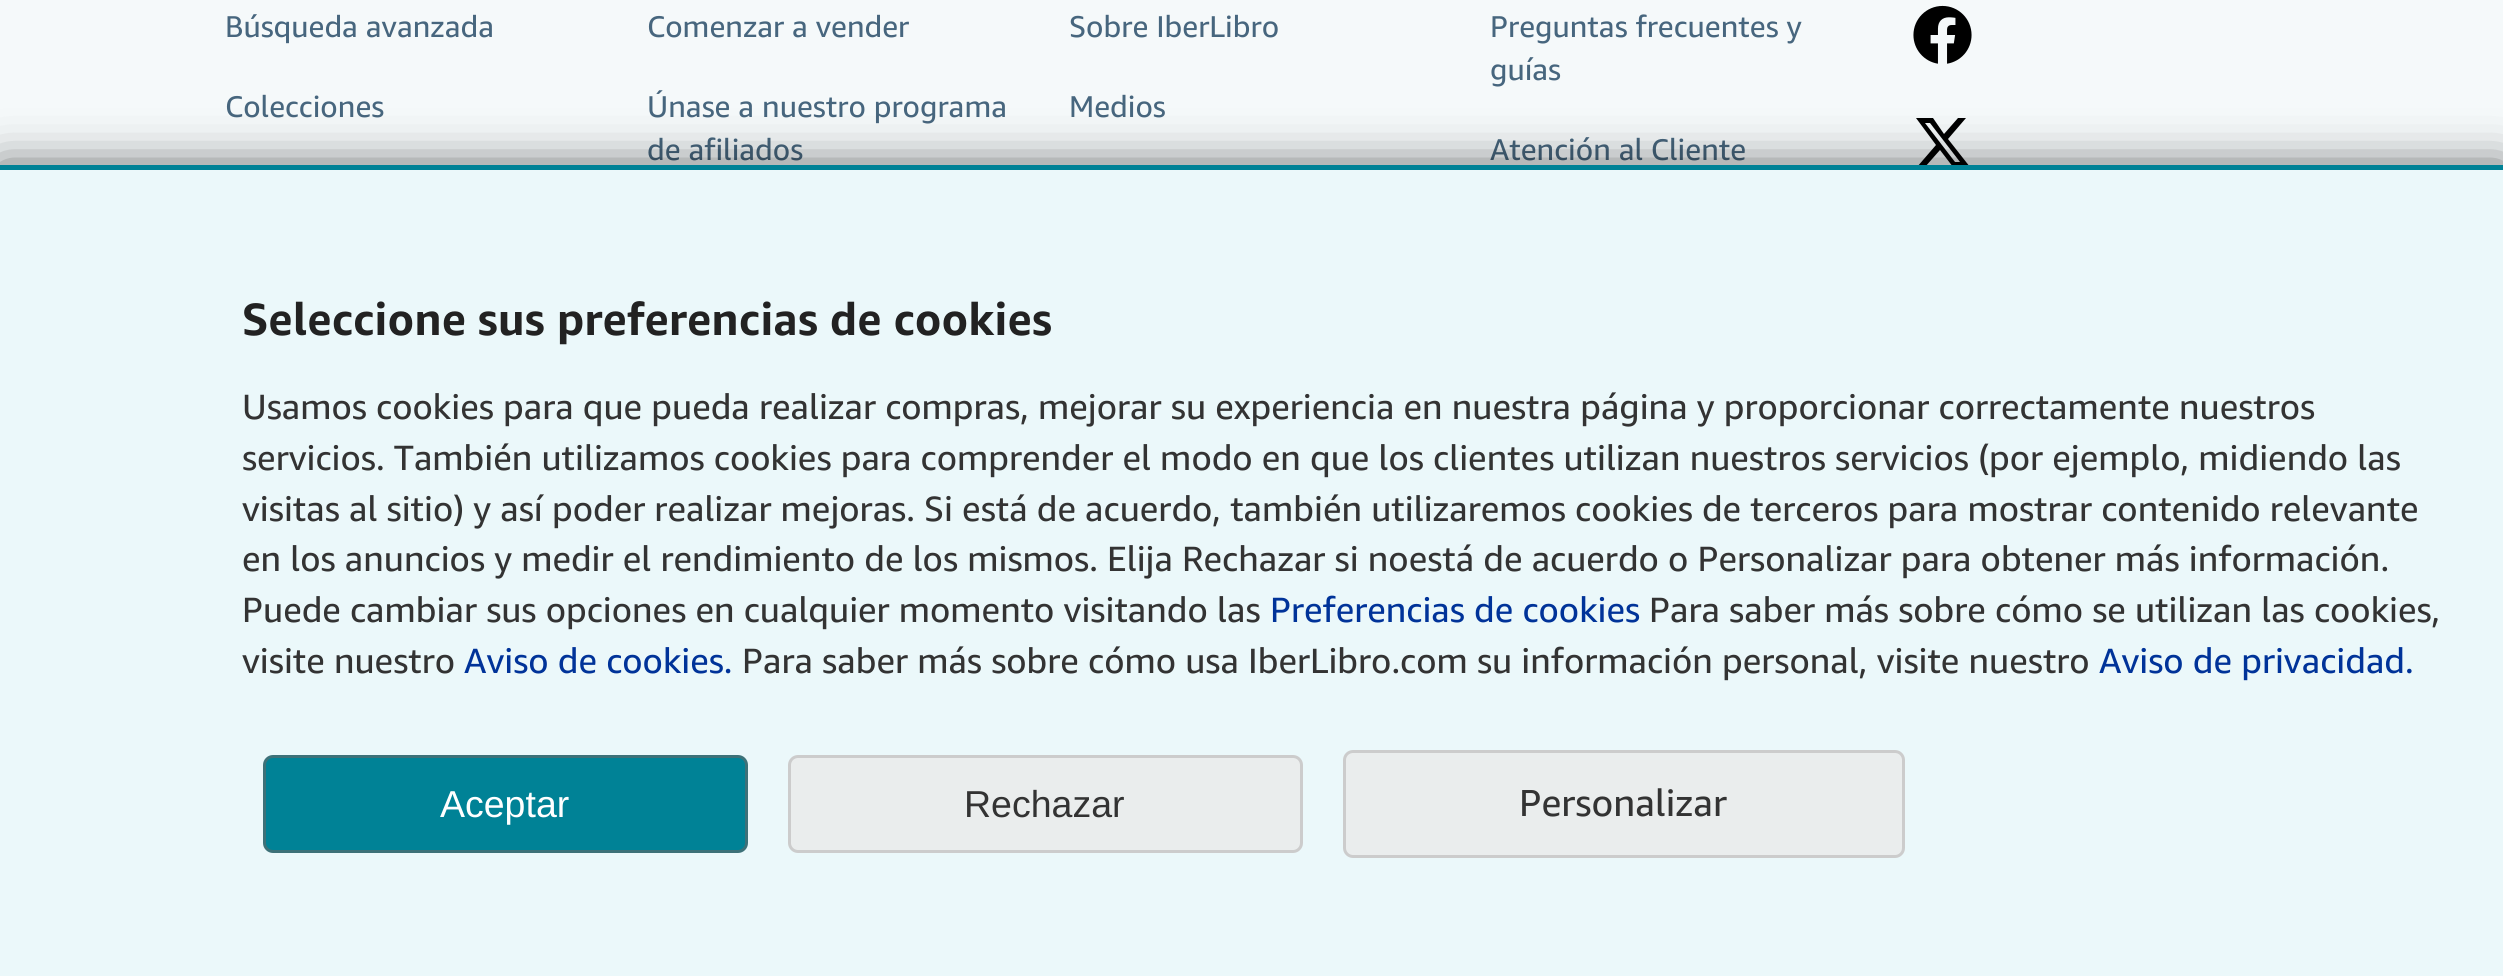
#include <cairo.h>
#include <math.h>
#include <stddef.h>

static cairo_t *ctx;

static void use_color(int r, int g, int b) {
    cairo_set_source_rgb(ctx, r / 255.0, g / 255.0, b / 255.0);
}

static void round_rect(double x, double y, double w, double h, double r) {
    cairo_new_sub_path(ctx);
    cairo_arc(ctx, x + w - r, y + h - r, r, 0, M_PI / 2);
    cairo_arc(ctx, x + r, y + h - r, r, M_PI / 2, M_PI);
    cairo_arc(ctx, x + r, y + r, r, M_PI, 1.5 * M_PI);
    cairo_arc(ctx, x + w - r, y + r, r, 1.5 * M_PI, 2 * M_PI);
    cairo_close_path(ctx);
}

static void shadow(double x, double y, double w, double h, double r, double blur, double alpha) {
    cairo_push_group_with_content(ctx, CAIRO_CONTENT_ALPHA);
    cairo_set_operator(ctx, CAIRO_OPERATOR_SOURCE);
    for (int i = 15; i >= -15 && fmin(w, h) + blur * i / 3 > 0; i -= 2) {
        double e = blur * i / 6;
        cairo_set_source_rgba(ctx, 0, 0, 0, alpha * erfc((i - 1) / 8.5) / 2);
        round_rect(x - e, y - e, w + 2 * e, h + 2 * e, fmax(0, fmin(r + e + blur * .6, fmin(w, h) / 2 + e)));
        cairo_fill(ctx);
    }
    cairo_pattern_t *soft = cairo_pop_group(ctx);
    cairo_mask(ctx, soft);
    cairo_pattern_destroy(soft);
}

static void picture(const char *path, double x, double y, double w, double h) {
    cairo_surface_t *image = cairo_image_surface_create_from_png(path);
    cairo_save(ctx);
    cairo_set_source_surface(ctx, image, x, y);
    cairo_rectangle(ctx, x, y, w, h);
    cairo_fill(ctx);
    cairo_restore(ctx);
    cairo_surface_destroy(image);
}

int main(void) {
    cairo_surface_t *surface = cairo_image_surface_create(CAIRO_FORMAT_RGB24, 2503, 976);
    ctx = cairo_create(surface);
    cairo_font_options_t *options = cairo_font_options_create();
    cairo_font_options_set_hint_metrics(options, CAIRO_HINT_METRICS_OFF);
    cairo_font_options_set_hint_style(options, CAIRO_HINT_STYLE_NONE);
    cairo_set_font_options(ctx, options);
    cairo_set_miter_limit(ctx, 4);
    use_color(245, 249, 250);
    cairo_paint(ctx);
    cairo_select_font_face(ctx, "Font", CAIRO_FONT_SLANT_NORMAL, CAIRO_FONT_WEIGHT_NORMAL);
    cairo_set_font_size(ctx, 30);
    use_color(71, 102, 126);
    cairo_move_to(ctx, 225, 37);
    cairo_show_text(ctx, "Búsqueda avanzada");
    cairo_move_to(ctx, 225, 117);
    cairo_show_text(ctx, "Colecciones");
    cairo_move_to(ctx, 647, 37);
    cairo_show_text(ctx, "Comenzar a vender");
    cairo_move_to(ctx, 647, 117);
    cairo_show_text(ctx, "Únase a nuestro programa");
    cairo_move_to(ctx, 647, 160);
    cairo_show_text(ctx, "de afiliados");
    cairo_move_to(ctx, 1069, 37);
    cairo_show_text(ctx, "Sobre IberLibro");
    cairo_move_to(ctx, 1069, 117);
    cairo_show_text(ctx, "Medios");
    cairo_move_to(ctx, 1490, 37);
    cairo_show_text(ctx, "Preguntas frecuentes y");
    cairo_move_to(ctx, 1490, 80);
    cairo_show_text(ctx, "guías");
    cairo_move_to(ctx, 1490, 160);
    cairo_show_text(ctx, "Atención al Cliente");
    picture("img1.png", 1913, 5, 59, 59);
    use_color(0, 0, 0);
    cairo_new_path(ctx);
    cairo_move_to(ctx, 1958, 118);
    cairo_line_to(ctx, 1966, 118);
    cairo_line_to(ctx, 1948, 139);
    cairo_line_to(ctx, 1970, 167);
    cairo_line_to(ctx, 1953, 167);
    cairo_line_to(ctx, 1940, 150);
    cairo_line_to(ctx, 1925, 167);
    cairo_line_to(ctx, 1917, 167);
    cairo_line_to(ctx, 1936, 145);
    cairo_line_to(ctx, 1916, 118);
    cairo_line_to(ctx, 1933, 118);
    cairo_line_to(ctx, 1944, 134);
    cairo_close_path(ctx);
    cairo_move_to(ctx, 1955, 162);
    cairo_line_to(ctx, 1960, 162);
    cairo_line_to(ctx, 1930, 123);
    cairo_line_to(ctx, 1925, 123);
    cairo_close_path(ctx);
    cairo_fill(ctx);
    use_color(0, 0, 0);
    shadow(0, 170, 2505, 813, 0, 25, 0.7);
    use_color(235, 248, 250);
    cairo_rectangle(ctx, 0, 170, 2503, 806);
    cairo_fill(ctx);
    use_color(0, 130, 150);
    cairo_rectangle(ctx, 0, 165, 2503, 5);
    cairo_fill(ctx);
    cairo_select_font_face(ctx, "Font", CAIRO_FONT_SLANT_NORMAL, CAIRO_FONT_WEIGHT_BOLD);
    cairo_set_font_size(ctx, 45);
    use_color(34, 34, 34);
    cairo_move_to(ctx, 242, 335);
    cairo_show_text(ctx, "Seleccione sus preferencias de cookies");
    cairo_select_font_face(ctx, "Font", CAIRO_FONT_SLANT_NORMAL, CAIRO_FONT_WEIGHT_NORMAL);
    cairo_set_font_size(ctx, 35);
    use_color(51, 51, 51);
    cairo_move_to(ctx, 242, 419);
    cairo_show_text(ctx, "Usamos cookies para que pueda realizar compras, mejorar su experiencia en nuestra página y proporcionar correctamente nuestros");
    cairo_move_to(ctx, 242, 470);
    cairo_show_text(ctx, "servicios. También utilizamos cookies para comprender el modo en que los clientes utilizan nuestros servicios (por ejemplo, midiendo las");
    cairo_move_to(ctx, 242, 521);
    cairo_show_text(ctx, "visitas al sitio) y así poder realizar mejoras. Si está de acuerdo, también utilizaremos cookies de terceros para mostrar contenido relevante");
    cairo_move_to(ctx, 242, 571);
    cairo_show_text(ctx, "en los anuncios y medir el rendimiento de los mismos. Elija Rechazar si noestá de acuerdo o Personalizar para obtener más información.");
    cairo_move_to(ctx, 242, 622);
    cairo_show_text(ctx, "Puede cambiar sus opciones en cualquier momento visitando las");
    use_color(0, 51, 153);
    cairo_move_to(ctx, 1270, 622);
    cairo_show_text(ctx, "Preferencias de cookies");
    use_color(51, 51, 51);
    cairo_move_to(ctx, 1649, 622);
    cairo_show_text(ctx, "Para saber más sobre cómo se utilizan las cookies,");
    cairo_move_to(ctx, 242, 673);
    cairo_show_text(ctx, "visite nuestro");
    use_color(0, 51, 153);
    cairo_move_to(ctx, 464, 673);
    cairo_show_text(ctx, "Aviso de cookies.");
    use_color(51, 51, 51);
    cairo_move_to(ctx, 742, 673);
    cairo_show_text(ctx, "Para saber más sobre cómo usa IberLibro.com su información personal, visite nuestro");
    use_color(0, 51, 153);
    cairo_move_to(ctx, 2099, 673);
    cairo_show_text(ctx, "Aviso de privacidad.");
    use_color(0, 130, 150);
    round_rect(264.5, 756.5, 482, 95, 8.5);
    cairo_fill_preserve(ctx);
    use_color(61, 113, 120);
    cairo_set_line_width(ctx, 3);
    cairo_stroke(ctx);
    cairo_select_font_face(ctx, "Liberation Sans", CAIRO_FONT_SLANT_NORMAL, CAIRO_FONT_WEIGHT_NORMAL);
    cairo_set_font_size(ctx, 37.5);
    use_color(255, 255, 255);
    cairo_move_to(ctx, 440, 817);
    cairo_show_text(ctx, "Aceptar");
    use_color(234, 237, 237);
    round_rect(789.5, 756.5, 512, 95, 8.5);
    cairo_fill_preserve(ctx);
    use_color(204, 204, 204);
    cairo_stroke(ctx);
    use_color(51, 51, 51);
    cairo_move_to(ctx, 964, 817);
    cairo_show_text(ctx, "Rechazar");
    use_color(234, 237, 237);
    round_rect(1344.5, 751.5, 559, 105, 8.5);
    cairo_fill_preserve(ctx);
    use_color(204, 204, 204);
    cairo_stroke(ctx);
    cairo_select_font_face(ctx, "Font", CAIRO_FONT_SLANT_NORMAL, CAIRO_FONT_WEIGHT_NORMAL);
    use_color(51, 51, 51);
    cairo_move_to(ctx, 1519, 816);
    cairo_show_text(ctx, "Personalizar");
    cairo_surface_write_to_png(surface, "result.png");
    cairo_font_options_destroy(options);
    cairo_destroy(ctx);
    cairo_surface_destroy(surface);
    return 0;
}
